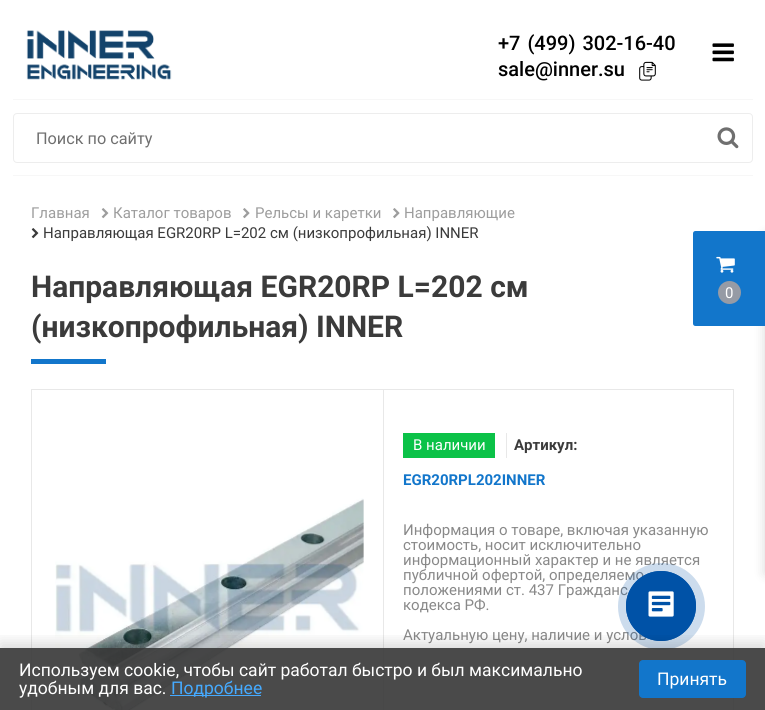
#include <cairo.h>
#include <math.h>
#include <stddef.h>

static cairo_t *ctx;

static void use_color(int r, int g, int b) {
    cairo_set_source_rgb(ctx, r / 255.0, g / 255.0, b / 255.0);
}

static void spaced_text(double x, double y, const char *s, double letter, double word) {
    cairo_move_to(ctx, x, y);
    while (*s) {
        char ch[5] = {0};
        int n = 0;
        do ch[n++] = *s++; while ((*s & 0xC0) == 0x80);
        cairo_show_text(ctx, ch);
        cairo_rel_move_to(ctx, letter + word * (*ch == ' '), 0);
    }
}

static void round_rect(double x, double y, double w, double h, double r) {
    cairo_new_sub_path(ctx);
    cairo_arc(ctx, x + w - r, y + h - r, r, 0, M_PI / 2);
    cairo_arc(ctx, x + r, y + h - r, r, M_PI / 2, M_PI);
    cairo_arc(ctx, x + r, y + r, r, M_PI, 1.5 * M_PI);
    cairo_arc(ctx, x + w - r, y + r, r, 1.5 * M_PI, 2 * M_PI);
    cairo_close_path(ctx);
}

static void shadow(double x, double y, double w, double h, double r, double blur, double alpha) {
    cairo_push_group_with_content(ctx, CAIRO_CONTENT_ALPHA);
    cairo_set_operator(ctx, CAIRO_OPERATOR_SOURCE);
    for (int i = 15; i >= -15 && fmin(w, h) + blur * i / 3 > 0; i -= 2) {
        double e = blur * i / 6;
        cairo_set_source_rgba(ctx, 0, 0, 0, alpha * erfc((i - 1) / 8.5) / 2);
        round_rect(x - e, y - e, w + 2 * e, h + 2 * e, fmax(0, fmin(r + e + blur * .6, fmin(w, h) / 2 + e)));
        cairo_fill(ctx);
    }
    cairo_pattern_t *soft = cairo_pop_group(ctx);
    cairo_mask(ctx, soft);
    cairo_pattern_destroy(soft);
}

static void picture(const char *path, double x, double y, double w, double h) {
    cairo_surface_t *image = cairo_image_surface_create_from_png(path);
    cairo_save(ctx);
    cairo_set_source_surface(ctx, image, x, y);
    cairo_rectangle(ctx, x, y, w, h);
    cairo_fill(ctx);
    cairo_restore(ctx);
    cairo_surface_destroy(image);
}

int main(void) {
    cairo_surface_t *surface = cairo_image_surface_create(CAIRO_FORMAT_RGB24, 765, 710);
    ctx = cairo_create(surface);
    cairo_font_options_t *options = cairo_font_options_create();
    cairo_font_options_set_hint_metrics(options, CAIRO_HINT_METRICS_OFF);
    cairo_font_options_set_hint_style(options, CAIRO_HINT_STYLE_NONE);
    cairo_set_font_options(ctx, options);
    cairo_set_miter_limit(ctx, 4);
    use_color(255, 255, 255);
    cairo_paint(ctx);
    use_color(247, 247, 247);
    cairo_rectangle(ctx, 13, 175, 740, 1);
    cairo_fill(ctx);
    cairo_rectangle(ctx, 13, 99, 740, 1);
    cairo_fill(ctx);
    picture("img1.png", 26, 30, 146, 50);
    cairo_select_font_face(ctx, "Roboto Medium", CAIRO_FONT_SLANT_NORMAL, CAIRO_FONT_WEIGHT_NORMAL);
    cairo_set_font_size(ctx, 20);
    use_color(0, 0, 0);
    spaced_text(498, 50, "+7 (499) 302-16-40", 0, 2);
    cairo_move_to(ctx, 498, 76);
    cairo_show_text(ctx, "sale@inner.su");
    picture("img2.png", 639, 61, 17, 20);
    picture("img3.png", 712, 43, 22, 19);
    round_rect(13.5, 113.5, 739, 49, 3.5);
    use_color(237, 237, 237);
    cairo_set_line_width(ctx, 1);
    cairo_stroke(ctx);
    cairo_select_font_face(ctx, "Roboto", CAIRO_FONT_SLANT_NORMAL, CAIRO_FONT_WEIGHT_NORMAL);
    cairo_set_font_size(ctx, 16.25);
    use_color(111, 111, 111);
    cairo_move_to(ctx, 36, 144);
    cairo_show_text(ctx, "Поиск по сайту");
    picture("img4.png", 717, 127, 22, 22);
    cairo_set_font_size(ctx, 15);
    use_color(157, 157, 157);
    cairo_move_to(ctx, 31, 218);
    cairo_show_text(ctx, "Главная");
    picture("img5.png", 101, 208, 8, 11);
    cairo_move_to(ctx, 113, 218);
    cairo_show_text(ctx, "Каталог товаров");
    picture("img6.png", 243, 208, 7, 11);
    cairo_move_to(ctx, 255, 218);
    cairo_show_text(ctx, "Рельсы и каретки");
    picture("img6.png", 393, 208, 7, 11);
    cairo_move_to(ctx, 404, 218);
    cairo_show_text(ctx, "Направляющие");
    picture("img7.png", 31, 228, 8, 11);
    use_color(59, 59, 59);
    cairo_move_to(ctx, 43, 238);
    cairo_show_text(ctx, "Направляющая EGR20RP L=202 см (низкопрофильная) INNER");
    cairo_select_font_face(ctx, "Roboto", CAIRO_FONT_SLANT_NORMAL, CAIRO_FONT_WEIGHT_BOLD);
    cairo_set_font_size(ctx, 30);
    cairo_move_to(ctx, 31, 297);
    cairo_show_text(ctx, "Направляющая EGR20RP L=202 см");
    cairo_move_to(ctx, 31, 337);
    cairo_show_text(ctx, "(низкопрофильная) INNER");
    use_color(18, 118, 203);
    cairo_rectangle(ctx, 31, 359, 75, 5);
    cairo_fill(ctx);
    cairo_rectangle(ctx, 31.5, 389.5, 702, 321);
    use_color(232, 232, 232);
    cairo_stroke(ctx);
    picture("img8.png", 55, 498, 309, 212);
    cairo_rectangle(ctx, 383, 390, 1, 320);
    cairo_fill(ctx);
    use_color(11, 194, 72);
    cairo_rectangle(ctx, 403, 433, 92, 25);
    cairo_fill(ctx);
    cairo_select_font_face(ctx, "Roboto", CAIRO_FONT_SLANT_NORMAL, CAIRO_FONT_WEIGHT_NORMAL);
    cairo_set_font_size(ctx, 15);
    use_color(255, 255, 255);
    cairo_move_to(ctx, 413, 450);
    cairo_show_text(ctx, "В наличии");
    cairo_select_font_face(ctx, "Roboto", CAIRO_FONT_SLANT_NORMAL, CAIRO_FONT_WEIGHT_BOLD);
    use_color(59, 59, 59);
    cairo_move_to(ctx, 514, 450);
    cairo_show_text(ctx, "Артикул:");
    use_color(232, 232, 232);
    cairo_rectangle(ctx, 506, 433, 1, 25);
    cairo_fill(ctx);
    use_color(18, 118, 203);
    cairo_move_to(ctx, 403, 485);
    cairo_show_text(ctx, "EGR20RPL202INNER");
    cairo_select_font_face(ctx, "Roboto", CAIRO_FONT_SLANT_NORMAL, CAIRO_FONT_WEIGHT_NORMAL);
    use_color(137, 137, 137);
    cairo_move_to(ctx, 403, 535);
    cairo_show_text(ctx, "Информация о товаре, включая указанную");
    cairo_move_to(ctx, 403, 550);
    cairo_show_text(ctx, "стоимость, носит исключительно");
    cairo_move_to(ctx, 403, 565);
    cairo_show_text(ctx, "информационный характер и не является");
    cairo_move_to(ctx, 403, 580);
    cairo_show_text(ctx, "публичной офертой, определяемо");
    cairo_move_to(ctx, 403, 595);
    cairo_show_text(ctx, "положениями ст. 437 Гражданс");
    cairo_move_to(ctx, 403, 610);
    cairo_show_text(ctx, "кодекса РФ.");
    cairo_move_to(ctx, 403, 640);
    cairo_show_text(ctx, "Актуальную цену, наличие и услов");
    use_color(0, 0, 0);
    shadow(765, 235, 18, 339, 0, 6, 0.15);
    use_color(18, 118, 203);
    cairo_new_path(ctx);
    cairo_move_to(ctx, 695.5, 231);
    cairo_line_to(ctx, 765, 231);
    cairo_line_to(ctx, 765, 326);
    cairo_line_to(ctx, 695.5, 326);
    cairo_curve_to(ctx, 694, 326, 693, 325, 693, 323.5);
    cairo_line_to(ctx, 693, 233.5);
    cairo_curve_to(ctx, 693, 232, 694, 231, 695.5, 231);
    cairo_close_path(ctx);
    cairo_fill(ctx);
    picture("img9.png", 716, 256, 19, 17);
    use_color(150, 155, 165);
    cairo_arc(ctx, 729.5, 292.5, 11.5, 0, 2 * M_PI);
    cairo_fill(ctx);
    use_color(255, 255, 255);
    cairo_move_to(ctx, 725, 298);
    cairo_show_text(ctx, "0");
    cairo_set_source_rgba(ctx, 0, 0.322, 0.655, 0.2);
    cairo_new_path(ctx);
    cairo_arc(ctx, 661.5, 606.5, 43.5, 0, 2 * M_PI);
    cairo_fill(ctx);
    cairo_arc(ctx, 661, 606, 34.5, 0, 2 * M_PI);
    use_color(0, 82, 167);
    cairo_stroke(ctx);
    cairo_arc(ctx, 661, 606, 35, 0, 2 * M_PI);
    cairo_fill(ctx);
    picture("img10.png", 648, 591, 26, 26);
    cairo_save(ctx);
    cairo_rectangle(ctx, 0, 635, 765, 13);
    cairo_clip(ctx);
    use_color(0, 0, 0);
    shadow(0, 643, 765, 62, 0, 7.5, 0.15);
    cairo_restore(ctx);
    cairo_set_source_rgba(ctx, 0.216, 0.216, 0.216, 0.9);
    cairo_rectangle(ctx, 0, 648, 765, 62);
    cairo_fill(ctx);
    cairo_set_font_size(ctx, 17.5);
    use_color(255, 255, 255);
    cairo_move_to(ctx, 19, 676);
    cairo_show_text(ctx, "Используем cookie, чтобы сайт работал быстро и был максимально");
    cairo_move_to(ctx, 19, 694);
    cairo_show_text(ctx, "удобным для вас.");
    use_color(69, 170, 255);
    cairo_rectangle(ctx, 170, 695, 91, 1);
    cairo_fill(ctx);
    cairo_move_to(ctx, 171, 694);
    cairo_show_text(ctx, "Подробнее");
    use_color(18, 118, 203);
    round_rect(639, 660, 107, 38, 4);
    cairo_fill(ctx);
    use_color(255, 255, 255);
    cairo_move_to(ctx, 657, 685);
    cairo_show_text(ctx, "Принять");
    cairo_surface_write_to_png(surface, "result.png");
    cairo_font_options_destroy(options);
    cairo_destroy(ctx);
    cairo_surface_destroy(surface);
    return 0;
}
